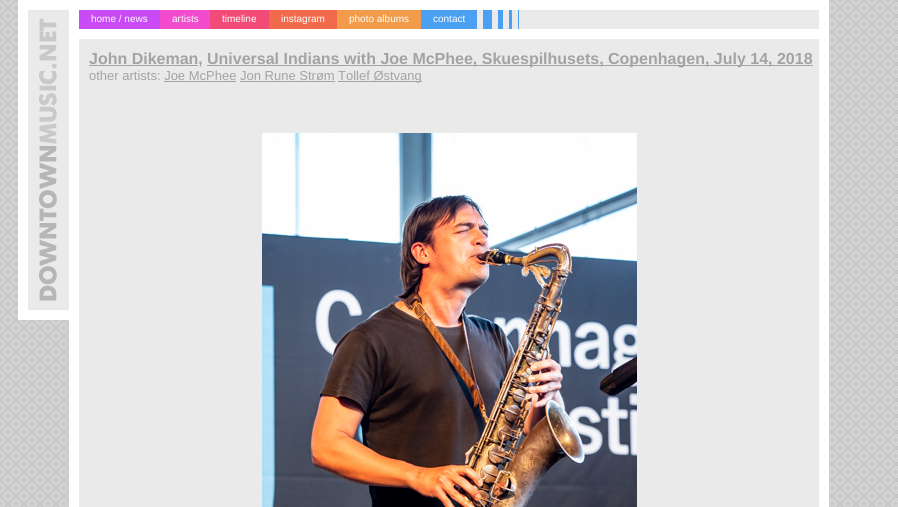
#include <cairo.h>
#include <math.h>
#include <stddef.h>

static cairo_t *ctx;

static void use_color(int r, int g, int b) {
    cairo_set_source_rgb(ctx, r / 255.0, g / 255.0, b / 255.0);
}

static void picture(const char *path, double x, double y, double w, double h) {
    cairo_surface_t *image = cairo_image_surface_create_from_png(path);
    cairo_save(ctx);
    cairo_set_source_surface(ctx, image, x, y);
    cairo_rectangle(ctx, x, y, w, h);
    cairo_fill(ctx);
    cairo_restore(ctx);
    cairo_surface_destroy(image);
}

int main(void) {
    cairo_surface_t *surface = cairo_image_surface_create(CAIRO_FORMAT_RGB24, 898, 507);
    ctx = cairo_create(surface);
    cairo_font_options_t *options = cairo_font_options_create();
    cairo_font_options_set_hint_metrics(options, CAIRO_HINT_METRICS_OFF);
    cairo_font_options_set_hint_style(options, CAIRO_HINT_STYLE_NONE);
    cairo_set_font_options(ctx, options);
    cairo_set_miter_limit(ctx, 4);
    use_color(255, 255, 255);
    cairo_paint(ctx);
    picture("img1.png", 0, 0, 898, 507);
    use_color(234, 234, 234);
    cairo_rectangle(ctx, 74, 5, 750, 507);
    cairo_fill_preserve(ctx);
    use_color(255, 255, 255);
    cairo_set_line_width(ctx, 10);
    cairo_stroke(ctx);
    use_color(234, 234, 234);
    cairo_rectangle(ctx, 28, 10, 41, 300);
    cairo_fill(ctx);
    picture("img2.png", 39, 18, 18, 283);
    use_color(255, 255, 255);
    cairo_rectangle(ctx, 28, 0, 41, 10);
    cairo_fill(ctx);
    cairo_rectangle(ctx, 28, 310, 41, 10);
    cairo_fill(ctx);
    cairo_rectangle(ctx, 18, 0, 10, 320);
    cairo_fill(ctx);
    cairo_rectangle(ctx, 79, 29, 740, 10);
    cairo_fill(ctx);
    use_color(201, 74, 247);
    cairo_rectangle(ctx, 79, 10, 81, 19);
    cairo_fill(ctx);
    cairo_select_font_face(ctx, "Liberation Sans", CAIRO_FONT_SLANT_NORMAL, CAIRO_FONT_WEIGHT_NORMAL);
    cairo_set_font_size(ctx, 10);
    use_color(255, 255, 255);
    cairo_move_to(ctx, 91, 22);
    cairo_show_text(ctx, "home / news");
    use_color(242, 75, 205);
    cairo_rectangle(ctx, 160, 10, 50, 19);
    cairo_fill(ctx);
    use_color(255, 255, 255);
    cairo_move_to(ctx, 172, 22);
    cairo_show_text(ctx, "artists");
    use_color(242, 75, 119);
    cairo_rectangle(ctx, 210, 10, 59, 19);
    cairo_fill(ctx);
    use_color(255, 255, 255);
    cairo_move_to(ctx, 222, 22);
    cairo_show_text(ctx, "timeline");
    use_color(242, 106, 75);
    cairo_rectangle(ctx, 269, 10, 68, 19);
    cairo_fill(ctx);
    use_color(255, 255, 255);
    cairo_move_to(ctx, 281, 22);
    cairo_show_text(ctx, "instagram");
    use_color(242, 156, 75);
    cairo_rectangle(ctx, 337, 10, 84, 19);
    cairo_fill(ctx);
    use_color(255, 255, 255);
    cairo_move_to(ctx, 349, 22);
    cairo_show_text(ctx, "photo albums");
    use_color(75, 160, 242);
    cairo_rectangle(ctx, 421, 10, 56, 19);
    cairo_fill(ctx);
    use_color(255, 255, 255);
    cairo_move_to(ctx, 433, 22);
    cairo_show_text(ctx, "contact");
    picture("img3.png", 483, 10, 36, 19);
    use_color(164, 163, 163);
    cairo_rectangle(ctx, 89, 65, 109, 1);
    cairo_fill(ctx);
    cairo_select_font_face(ctx, "Liberation Sans", CAIRO_FONT_SLANT_NORMAL, CAIRO_FONT_WEIGHT_BOLD);
    cairo_set_font_size(ctx, 16);
    cairo_move_to(ctx, 89, 64);
    cairo_show_text(ctx, "John Dikeman,");
    cairo_rectangle(ctx, 207, 65, 606, 1);
    cairo_fill(ctx);
    cairo_move_to(ctx, 207, 64);
    cairo_show_text(ctx, "Universal Indians with Joe McPhee, Skuespilhusets, Copenhagen, July 14, 2018");
    cairo_select_font_face(ctx, "Liberation Sans", CAIRO_FONT_SLANT_NORMAL, CAIRO_FONT_WEIGHT_NORMAL);
    cairo_set_font_size(ctx, 13);
    cairo_move_to(ctx, 89, 80);
    cairo_show_text(ctx, "other artists: Joe McPhee Jon Rune Strøm");
    cairo_rectangle(ctx, 338, 81, 84, 1);
    cairo_fill(ctx);
    cairo_move_to(ctx, 338, 80);
    cairo_show_text(ctx, "Tollef Østvang");
    cairo_rectangle(ctx, 164, 81, 72, 1);
    cairo_fill(ctx);
    cairo_rectangle(ctx, 240, 81, 95, 1);
    cairo_fill(ctx);
    picture("img4.png", 262, 133, 375, 374);
    cairo_surface_write_to_png(surface, "result.png");
    cairo_font_options_destroy(options);
    cairo_destroy(ctx);
    cairo_surface_destroy(surface);
    return 0;
}
